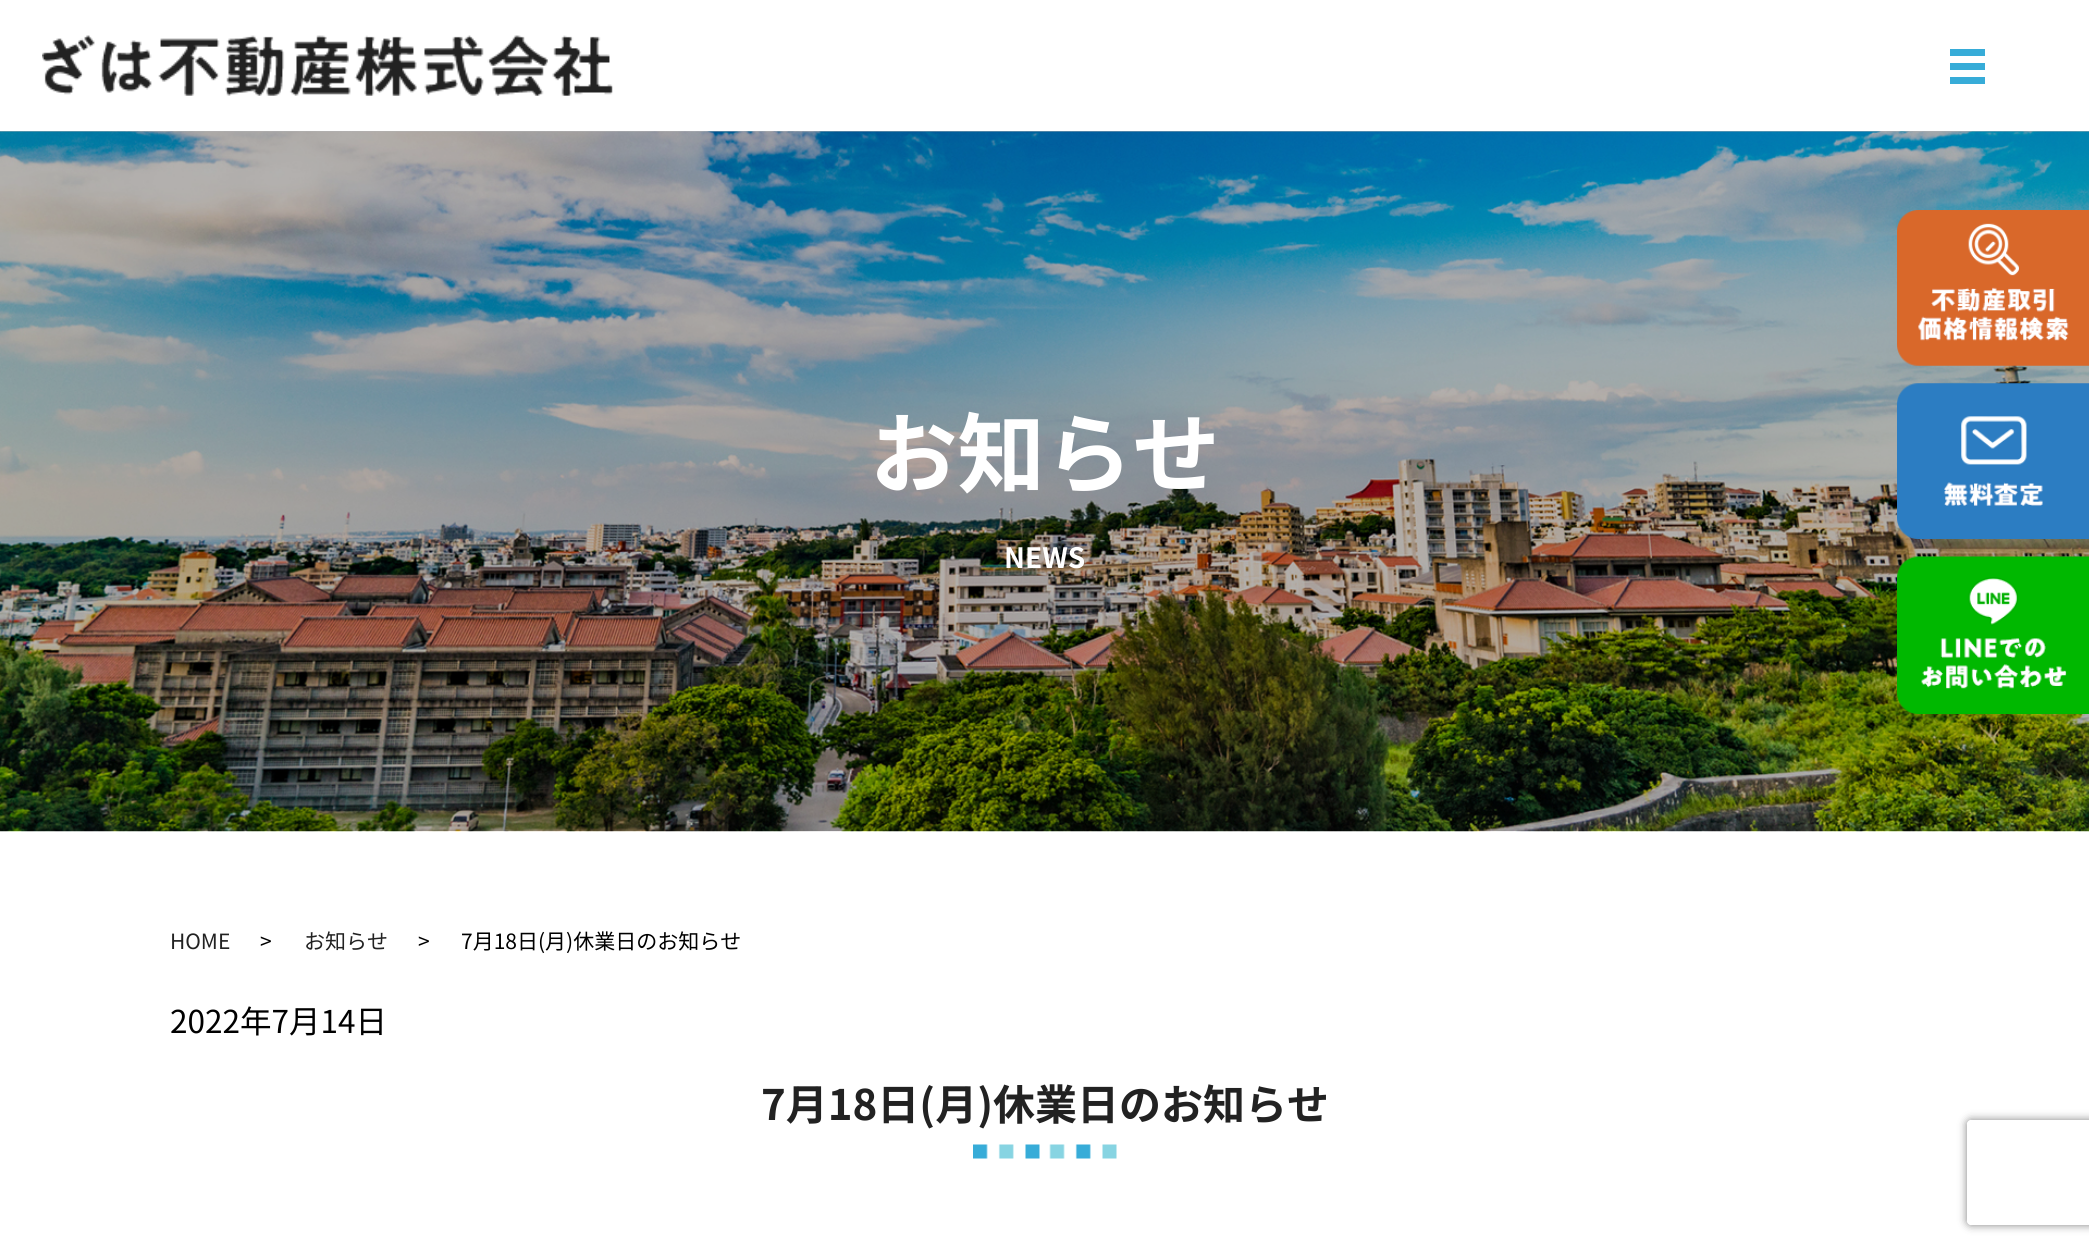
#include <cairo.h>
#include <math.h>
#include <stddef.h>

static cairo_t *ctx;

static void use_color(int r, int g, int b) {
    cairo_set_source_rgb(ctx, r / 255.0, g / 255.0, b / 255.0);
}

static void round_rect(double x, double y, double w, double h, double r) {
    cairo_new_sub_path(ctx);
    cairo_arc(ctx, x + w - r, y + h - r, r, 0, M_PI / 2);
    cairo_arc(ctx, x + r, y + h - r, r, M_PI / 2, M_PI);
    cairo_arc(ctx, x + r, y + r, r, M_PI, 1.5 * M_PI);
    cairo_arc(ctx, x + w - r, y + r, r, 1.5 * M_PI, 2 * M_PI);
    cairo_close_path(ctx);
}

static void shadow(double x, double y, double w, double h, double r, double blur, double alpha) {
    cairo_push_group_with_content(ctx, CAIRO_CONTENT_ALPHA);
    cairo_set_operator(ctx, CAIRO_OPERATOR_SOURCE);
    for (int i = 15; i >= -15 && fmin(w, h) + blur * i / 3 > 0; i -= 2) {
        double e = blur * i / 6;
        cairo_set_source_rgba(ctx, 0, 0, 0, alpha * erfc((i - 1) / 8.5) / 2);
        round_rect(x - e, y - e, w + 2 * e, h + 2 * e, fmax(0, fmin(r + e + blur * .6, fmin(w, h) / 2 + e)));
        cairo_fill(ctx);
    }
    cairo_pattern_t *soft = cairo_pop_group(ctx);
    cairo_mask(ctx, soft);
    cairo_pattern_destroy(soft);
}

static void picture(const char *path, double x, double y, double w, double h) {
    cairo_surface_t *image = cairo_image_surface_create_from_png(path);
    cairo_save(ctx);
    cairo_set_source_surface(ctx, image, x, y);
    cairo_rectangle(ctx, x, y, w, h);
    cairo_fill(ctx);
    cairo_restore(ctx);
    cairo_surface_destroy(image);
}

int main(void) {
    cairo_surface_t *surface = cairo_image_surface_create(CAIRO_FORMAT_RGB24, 2089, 1249);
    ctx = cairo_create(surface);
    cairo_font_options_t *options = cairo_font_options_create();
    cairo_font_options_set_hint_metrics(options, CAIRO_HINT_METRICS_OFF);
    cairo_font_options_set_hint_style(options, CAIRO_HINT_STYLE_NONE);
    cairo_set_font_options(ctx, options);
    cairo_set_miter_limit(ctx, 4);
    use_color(255, 255, 255);
    cairo_paint(ctx);
    use_color(179, 179, 179);
    cairo_rectangle(ctx, 0, 131, 2089, 1);
    cairo_fill(ctx);
    picture("img1.png", 42, 35, 571, 61);
    use_color(55, 172, 216);
    cairo_rectangle(ctx, 1950, 49, 35, 7);
    cairo_fill(ctx);
    cairo_rectangle(ctx, 1950, 63, 35, 7);
    cairo_fill(ctx);
    cairo_rectangle(ctx, 1950, 77, 35, 7);
    cairo_fill(ctx);
    picture("img2.png", 0, 131, 2089, 701);
    cairo_select_font_face(ctx, "Noto Sans JP", CAIRO_FONT_SLANT_NORMAL, CAIRO_FONT_WEIGHT_BOLD);
    cairo_set_font_size(ctx, 87.5);
    use_color(255, 255, 255);
    cairo_move_to(ctx, 870, 486);
    cairo_show_text(ctx, "お知らせ");
    cairo_set_font_size(ctx, 28);
    cairo_move_to(ctx, 1004, 568);
    cairo_show_text(ctx, "NEWS");
    cairo_select_font_face(ctx, "Noto Sans JP", CAIRO_FONT_SLANT_NORMAL, CAIRO_FONT_WEIGHT_NORMAL);
    cairo_set_font_size(ctx, 21);
    use_color(34, 34, 34);
    cairo_move_to(ctx, 170, 949);
    cairo_show_text(ctx, "HOME");
    use_color(0, 0, 0);
    cairo_move_to(ctx, 260, 949);
    cairo_show_text(ctx, ">");
    use_color(34, 34, 34);
    cairo_move_to(ctx, 304, 949);
    cairo_show_text(ctx, "お知らせ");
    use_color(0, 0, 0);
    cairo_move_to(ctx, 418, 949);
    cairo_show_text(ctx, ">");
    cairo_move_to(ctx, 461, 949);
    cairo_show_text(ctx, "7月18日(月)休業日のお知らせ");
    cairo_set_font_size(ctx, 31.5);
    cairo_move_to(ctx, 170, 1033);
    cairo_show_text(ctx, "2022年7月14日");
    cairo_select_font_face(ctx, "Noto Sans JP", CAIRO_FONT_SLANT_NORMAL, CAIRO_FONT_WEIGHT_BOLD);
    cairo_set_font_size(ctx, 42);
    use_color(34, 34, 34);
    cairo_move_to(ctx, 761, 1120);
    cairo_show_text(ctx, "7月18日(月)休業日のお知らせ");
    picture("img3.png", 973, 1144, 144, 15);
    picture("img4.png", 1897, 210, 192, 156);
    picture("img5.png", 1897, 383, 192, 156);
    picture("img6.png", 1897, 556, 192, 158);
    cairo_save(ctx);
    cairo_set_fill_rule(ctx, CAIRO_FILL_RULE_EVEN_ODD);
    cairo_new_path(ctx);
    cairo_move_to(ctx, 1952, 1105);
    cairo_line_to(ctx, 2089, 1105);
    cairo_line_to(ctx, 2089, 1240);
    cairo_line_to(ctx, 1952, 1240);
    cairo_close_path(ctx);
    cairo_move_to(ctx, 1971, 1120);
    cairo_line_to(ctx, 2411, 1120);
    cairo_curve_to(ctx, 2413, 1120, 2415, 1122, 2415, 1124);
    cairo_line_to(ctx, 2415, 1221);
    cairo_curve_to(ctx, 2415, 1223, 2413, 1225, 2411, 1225);
    cairo_line_to(ctx, 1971, 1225);
    cairo_curve_to(ctx, 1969, 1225, 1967, 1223, 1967, 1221);
    cairo_line_to(ctx, 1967, 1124);
    cairo_curve_to(ctx, 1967, 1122, 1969, 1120, 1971, 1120);
    cairo_close_path(ctx);
    cairo_clip(ctx);
    use_color(128, 128, 128);
    shadow(1967, 1120, 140, 105, 4, 4.5, 1);
    cairo_restore(ctx);
    cairo_surface_write_to_png(surface, "result.png");
    cairo_font_options_destroy(options);
    cairo_destroy(ctx);
    cairo_surface_destroy(surface);
    return 0;
}
